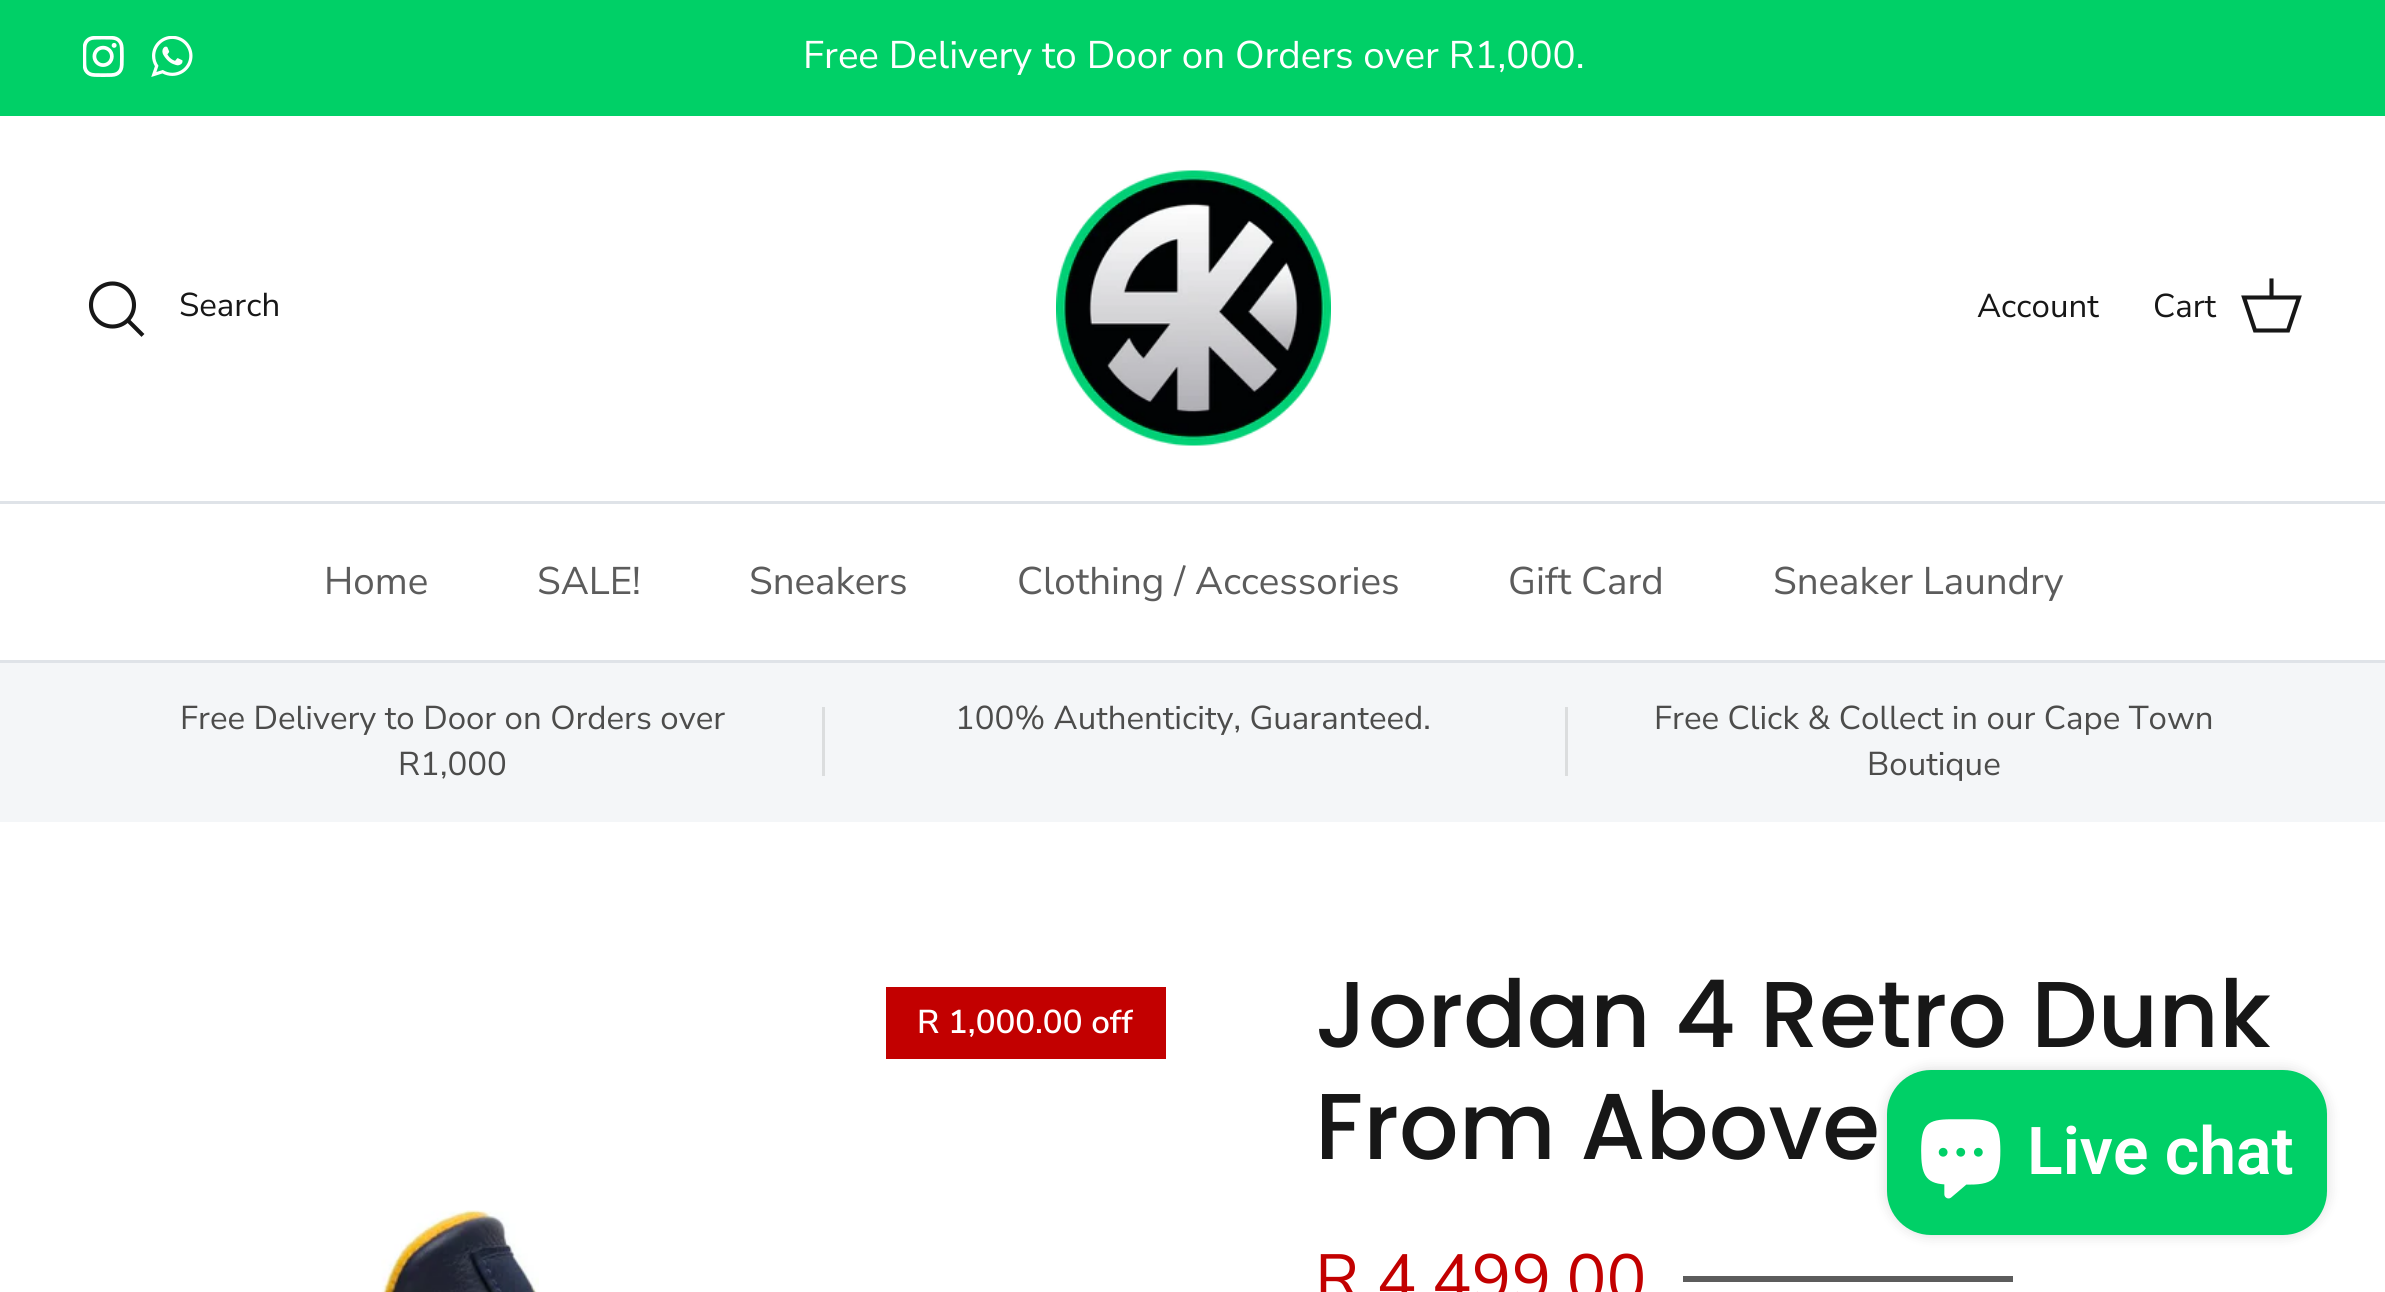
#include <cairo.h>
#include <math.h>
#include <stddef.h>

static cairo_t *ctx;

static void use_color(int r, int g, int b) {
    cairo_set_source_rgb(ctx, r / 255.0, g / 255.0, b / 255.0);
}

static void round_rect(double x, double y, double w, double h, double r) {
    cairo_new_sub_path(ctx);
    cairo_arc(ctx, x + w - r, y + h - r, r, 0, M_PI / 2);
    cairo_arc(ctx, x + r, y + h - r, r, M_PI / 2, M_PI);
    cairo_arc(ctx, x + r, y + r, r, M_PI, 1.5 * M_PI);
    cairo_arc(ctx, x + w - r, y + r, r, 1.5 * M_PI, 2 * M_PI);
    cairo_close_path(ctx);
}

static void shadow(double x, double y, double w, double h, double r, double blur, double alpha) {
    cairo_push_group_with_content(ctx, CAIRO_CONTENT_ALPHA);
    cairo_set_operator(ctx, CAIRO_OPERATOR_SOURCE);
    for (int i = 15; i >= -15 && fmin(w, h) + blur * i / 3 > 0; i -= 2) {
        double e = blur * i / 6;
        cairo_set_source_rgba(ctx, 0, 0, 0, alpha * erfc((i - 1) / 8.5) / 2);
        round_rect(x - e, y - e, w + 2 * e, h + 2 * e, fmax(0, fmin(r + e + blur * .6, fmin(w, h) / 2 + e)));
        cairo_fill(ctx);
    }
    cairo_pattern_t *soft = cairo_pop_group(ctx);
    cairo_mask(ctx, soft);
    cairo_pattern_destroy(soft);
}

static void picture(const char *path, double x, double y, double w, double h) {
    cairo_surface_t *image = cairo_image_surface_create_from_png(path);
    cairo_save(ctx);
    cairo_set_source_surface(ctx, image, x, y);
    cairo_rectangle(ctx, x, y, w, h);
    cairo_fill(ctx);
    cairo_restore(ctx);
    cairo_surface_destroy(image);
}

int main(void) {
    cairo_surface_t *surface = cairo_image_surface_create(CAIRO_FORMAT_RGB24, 2385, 1292);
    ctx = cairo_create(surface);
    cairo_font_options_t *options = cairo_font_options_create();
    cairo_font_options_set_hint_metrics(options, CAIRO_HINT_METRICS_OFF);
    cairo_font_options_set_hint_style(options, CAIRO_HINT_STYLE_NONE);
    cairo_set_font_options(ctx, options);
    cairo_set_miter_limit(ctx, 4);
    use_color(255, 255, 255);
    cairo_paint(ctx);
    use_color(0, 208, 103);
    cairo_rectangle(ctx, 0, 0, 2385, 116);
    cairo_fill(ctx);
    picture("img1.png", 83, 36, 41, 41);
    picture("img2.png", 151, 36, 42, 41);
    cairo_select_font_face(ctx, "Nunito Sans", CAIRO_FONT_SLANT_NORMAL, CAIRO_FONT_WEIGHT_NORMAL);
    cairo_set_font_size(ctx, 38.5);
    use_color(255, 255, 255);
    cairo_move_to(ctx, 803, 68);
    cairo_show_text(ctx, "Free Delivery to Door on Orders over R1,000.");
    use_color(223, 227, 232);
    cairo_rectangle(ctx, 0, 501, 2385, 3);
    cairo_fill(ctx);
    cairo_arc(ctx, 112.5, 305, 21.5, 0, 2 * M_PI);
    use_color(23, 23, 23);
    cairo_set_line_width(ctx, 4.1);
    cairo_stroke(ctx);
    cairo_set_font_size(ctx, 33);
    cairo_move_to(ctx, 179, 316);
    cairo_show_text(ctx, "Search");
    cairo_new_path(ctx);
    cairo_move_to(ctx, 129, 321.5);
    cairo_line_to(ctx, 141.5, 334);
    cairo_set_line_cap(ctx, CAIRO_LINE_CAP_SQUARE);
    cairo_stroke(ctx);
    picture("img3.png", 1056, 170, 275, 276);
    cairo_move_to(ctx, 1977, 317);
    cairo_show_text(ctx, "Account");
    cairo_move_to(ctx, 2153, 317);
    cairo_show_text(ctx, "Cart");
    cairo_new_path(ctx);
    cairo_move_to(ctx, 2244, 297.5);
    cairo_line_to(ctx, 2299, 297.5);
    cairo_line_to(ctx, 2288, 330.5);
    cairo_line_to(ctx, 2255, 330.5);
    cairo_close_path(ctx);
    cairo_set_line_cap(ctx, CAIRO_LINE_CAP_BUTT);
    cairo_stroke(ctx);
    cairo_new_path(ctx);
    cairo_move_to(ctx, 2271.5, 297);
    cairo_line_to(ctx, 2271.5, 280.5);
    cairo_set_line_cap(ctx, CAIRO_LINE_CAP_SQUARE);
    cairo_stroke(ctx);
    use_color(223, 227, 232);
    cairo_rectangle(ctx, 0, 660, 2385, 3);
    cairo_fill(ctx);
    cairo_set_font_size(ctx, 38.5);
    use_color(92, 92, 92);
    cairo_move_to(ctx, 324, 594);
    cairo_show_text(ctx, "Home");
    cairo_move_to(ctx, 537, 594);
    cairo_show_text(ctx, "SALE!");
    cairo_move_to(ctx, 749, 594);
    cairo_show_text(ctx, "Sneakers");
    cairo_move_to(ctx, 1017, 594);
    cairo_show_text(ctx, "Clothing / Accessories");
    cairo_move_to(ctx, 1508, 594);
    cairo_show_text(ctx, "Gift Card");
    cairo_move_to(ctx, 1773, 594);
    cairo_show_text(ctx, "Sneaker Laundry");
    use_color(244, 246, 248);
    cairo_rectangle(ctx, 0, 663, 2385, 159);
    cairo_fill(ctx);
    cairo_set_font_size(ctx, 33);
    use_color(76, 76, 75);
    cairo_move_to(ctx, 180, 729);
    cairo_show_text(ctx, "Free Delivery to Door on Orders over");
    cairo_move_to(ctx, 398, 775);
    cairo_show_text(ctx, "R1,000");
    use_color(219, 221, 222);
    cairo_rectangle(ctx, 822, 707, 3, 69);
    cairo_fill(ctx);
    use_color(76, 76, 75);
    cairo_move_to(ctx, 955, 729);
    cairo_show_text(ctx, "100% Authenticity, Guaranteed.");
    use_color(219, 221, 222);
    cairo_rectangle(ctx, 1565, 707, 3, 69);
    cairo_fill(ctx);
    use_color(76, 76, 75);
    cairo_move_to(ctx, 1654, 729);
    cairo_show_text(ctx, "Free Click & Collect in our Cape Town");
    cairo_move_to(ctx, 1867, 775);
    cairo_show_text(ctx, "Boutique");
    use_color(194, 0, 0);
    cairo_rectangle(ctx, 886, 987, 280, 72);
    cairo_fill(ctx);
    cairo_select_font_face(ctx, "Nunito Sans SemiBold", CAIRO_FONT_SLANT_NORMAL, CAIRO_FONT_WEIGHT_NORMAL);
    use_color(255, 255, 255);
    cairo_move_to(ctx, 917, 1033);
    cairo_show_text(ctx, "R 1,000.00 off");
    picture("img4.png", 381, 1210, 158, 82);
    cairo_select_font_face(ctx, "Poppins Medium", CAIRO_FONT_SLANT_NORMAL, CAIRO_FONT_WEIGHT_NORMAL);
    cairo_set_font_size(ctx, 93.5);
    use_color(23, 23, 23);
    cairo_move_to(ctx, 1315, 1047);
    cairo_show_text(ctx, "Jordan 4 Retro Dunk");
    cairo_move_to(ctx, 1315, 1159);
    cairo_show_text(ctx, "From Above");
    cairo_select_font_face(ctx, "Nunito Sans", CAIRO_FONT_SLANT_NORMAL, CAIRO_FONT_WEIGHT_NORMAL);
    cairo_set_font_size(ctx, 66.5);
    use_color(194, 0, 0);
    cairo_move_to(ctx, 1315, 1301);
    cairo_show_text(ctx, "R 4,499.00");
    use_color(92, 92, 92);
    cairo_rectangle(ctx, 1683, 1276, 330, 6);
    cairo_fill(ctx);
    use_color(0, 0, 0);
    shadow(1887, 1070, 440, 165, 44, 7, 0.15);
    use_color(0, 208, 103);
    round_rect(1887, 1070, 440, 165, 44);
    cairo_fill(ctx);
    picture("img5.png", 1921, 1119, 80, 80);
    cairo_select_font_face(ctx, "Roboto SemiBold", CAIRO_FONT_SLANT_NORMAL, CAIRO_FONT_WEIGHT_NORMAL);
    cairo_set_font_size(ctx, 66);
    use_color(255, 255, 255);
    cairo_move_to(ctx, 2027, 1174);
    cairo_show_text(ctx, "Live chat");
    cairo_surface_write_to_png(surface, "result.png");
    cairo_font_options_destroy(options);
    cairo_destroy(ctx);
    cairo_surface_destroy(surface);
    return 0;
}
